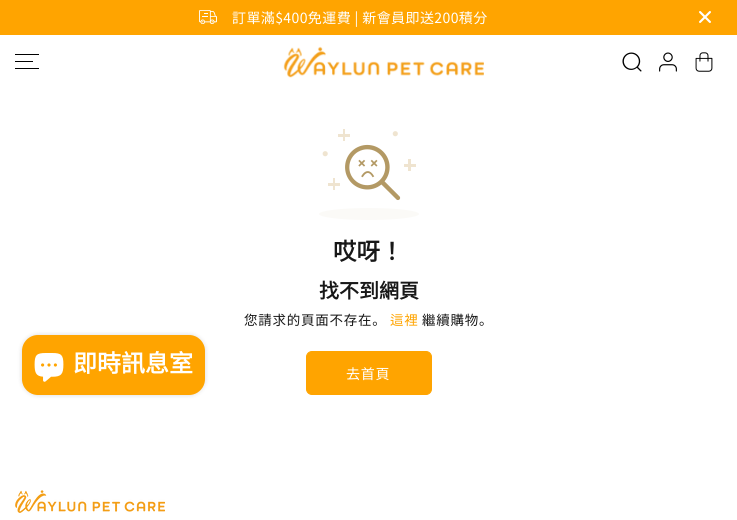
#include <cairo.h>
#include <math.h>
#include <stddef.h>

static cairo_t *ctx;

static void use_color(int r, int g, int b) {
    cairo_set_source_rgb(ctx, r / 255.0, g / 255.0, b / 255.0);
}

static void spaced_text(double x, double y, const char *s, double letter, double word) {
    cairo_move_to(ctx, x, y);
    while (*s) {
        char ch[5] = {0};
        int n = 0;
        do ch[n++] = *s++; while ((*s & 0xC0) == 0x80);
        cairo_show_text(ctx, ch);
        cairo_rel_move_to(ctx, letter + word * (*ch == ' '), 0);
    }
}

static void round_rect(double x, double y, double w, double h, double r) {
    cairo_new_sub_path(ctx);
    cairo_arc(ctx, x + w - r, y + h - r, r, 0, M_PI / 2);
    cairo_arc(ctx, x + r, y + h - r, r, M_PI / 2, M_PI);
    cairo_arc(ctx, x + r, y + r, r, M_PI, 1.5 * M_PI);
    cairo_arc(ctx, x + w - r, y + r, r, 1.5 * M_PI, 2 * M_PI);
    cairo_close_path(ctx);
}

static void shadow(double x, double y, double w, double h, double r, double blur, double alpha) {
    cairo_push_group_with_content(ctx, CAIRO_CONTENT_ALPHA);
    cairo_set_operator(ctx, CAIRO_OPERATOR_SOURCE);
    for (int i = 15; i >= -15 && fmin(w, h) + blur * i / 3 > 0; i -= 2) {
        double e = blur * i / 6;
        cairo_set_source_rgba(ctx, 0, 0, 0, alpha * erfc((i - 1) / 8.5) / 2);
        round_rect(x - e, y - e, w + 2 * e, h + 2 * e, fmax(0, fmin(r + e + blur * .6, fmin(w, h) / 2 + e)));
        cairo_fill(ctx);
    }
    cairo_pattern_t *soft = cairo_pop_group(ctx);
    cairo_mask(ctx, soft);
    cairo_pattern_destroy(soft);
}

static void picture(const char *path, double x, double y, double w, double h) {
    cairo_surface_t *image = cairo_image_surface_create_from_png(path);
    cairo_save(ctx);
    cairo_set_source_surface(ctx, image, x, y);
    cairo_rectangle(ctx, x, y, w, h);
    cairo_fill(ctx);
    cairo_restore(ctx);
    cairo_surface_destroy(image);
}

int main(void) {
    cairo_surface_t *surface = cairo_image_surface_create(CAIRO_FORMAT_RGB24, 737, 520);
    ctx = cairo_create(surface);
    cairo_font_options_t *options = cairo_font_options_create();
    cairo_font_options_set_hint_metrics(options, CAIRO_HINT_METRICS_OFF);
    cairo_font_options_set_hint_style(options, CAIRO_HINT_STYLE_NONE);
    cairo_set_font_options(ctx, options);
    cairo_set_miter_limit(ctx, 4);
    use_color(255, 255, 255);
    cairo_paint(ctx);
    use_color(0, 0, 0);
    shadow(22, 335, 183, 60, 16, 2.5, 0.15);
    use_color(255, 164, 0);
    round_rect(22, 335, 183, 60, 16);
    cairo_fill(ctx);
    picture("img1.png", 34, 353, 30, 29);
    cairo_select_font_face(ctx, "Noto Sans CJK TC", CAIRO_FONT_SLANT_NORMAL, CAIRO_FONT_WEIGHT_BOLD);
    cairo_set_font_size(ctx, 24);
    use_color(255, 255, 255);
    cairo_move_to(ctx, 73, 372);
    cairo_show_text(ctx, "即時訊息室");
    use_color(255, 164, 0);
    cairo_rectangle(ctx, 0, 0, 737, 35);
    cairo_fill(ctx);
    picture("img2.png", 199, 10, 18, 14);
    cairo_select_font_face(ctx, "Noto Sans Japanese", CAIRO_FONT_SLANT_NORMAL, CAIRO_FONT_WEIGHT_NORMAL);
    cairo_set_font_size(ctx, 14);
    use_color(255, 255, 255);
    spaced_text(232, 23, "訂單滿$400免運費 | 新會員即送200積分", 0.4, 0);
    picture("img3.png", 699, 11, 12, 12);
    use_color(0, 0, 0);
    cairo_rectangle(ctx, 15, 61, 18, 1);
    cairo_fill(ctx);
    cairo_rectangle(ctx, 15, 54, 24, 1);
    cairo_fill(ctx);
    cairo_rectangle(ctx, 15, 68, 24, 1);
    cairo_fill(ctx);
    picture("img4.png", 283, 46, 201, 32);
    picture("img5.png", 622, 52, 20, 20);
    picture("img6.png", 659, 52, 18, 20);
    picture("img7.png", 695, 52, 18, 20);
    picture("img8.png", 319, 129, 100, 91);
    cairo_select_font_face(ctx, "Noto Sans CJK TC", CAIRO_FONT_SLANT_NORMAL, CAIRO_FONT_WEIGHT_BOLD);
    cairo_set_font_size(ctx, 23.5);
    use_color(24, 24, 24);
    cairo_move_to(ctx, 333, 260);
    cairo_show_text(ctx, "哎呀！");
    cairo_set_font_size(ctx, 20);
    cairo_move_to(ctx, 319, 298);
    cairo_show_text(ctx, "找不到網頁");
    cairo_select_font_face(ctx, "Noto Sans Japanese", CAIRO_FONT_SLANT_NORMAL, CAIRO_FONT_WEIGHT_NORMAL);
    cairo_set_font_size(ctx, 13.5);
    spaced_text(244, 325, "您請求的頁面不存在。", 0.75, 0);
    use_color(255, 164, 0);
    spaced_text(390, 325, "這裡", 0.75, 0);
    use_color(24, 24, 24);
    spaced_text(422, 325, "繼續購物。", 0.75, 0);
    use_color(255, 164, 0);
    round_rect(306.5, 351.5, 125, 43, 5.5);
    cairo_fill_preserve(ctx);
    cairo_set_line_width(ctx, 1);
    cairo_stroke(ctx);
    cairo_set_font_size(ctx, 14);
    use_color(255, 255, 255);
    spaced_text(346, 379, "去首頁", 0.75, 0);
    picture("img9.png", 15, 490, 150, 23);
    cairo_surface_write_to_png(surface, "result.png");
    cairo_font_options_destroy(options);
    cairo_destroy(ctx);
    cairo_surface_destroy(surface);
    return 0;
}
